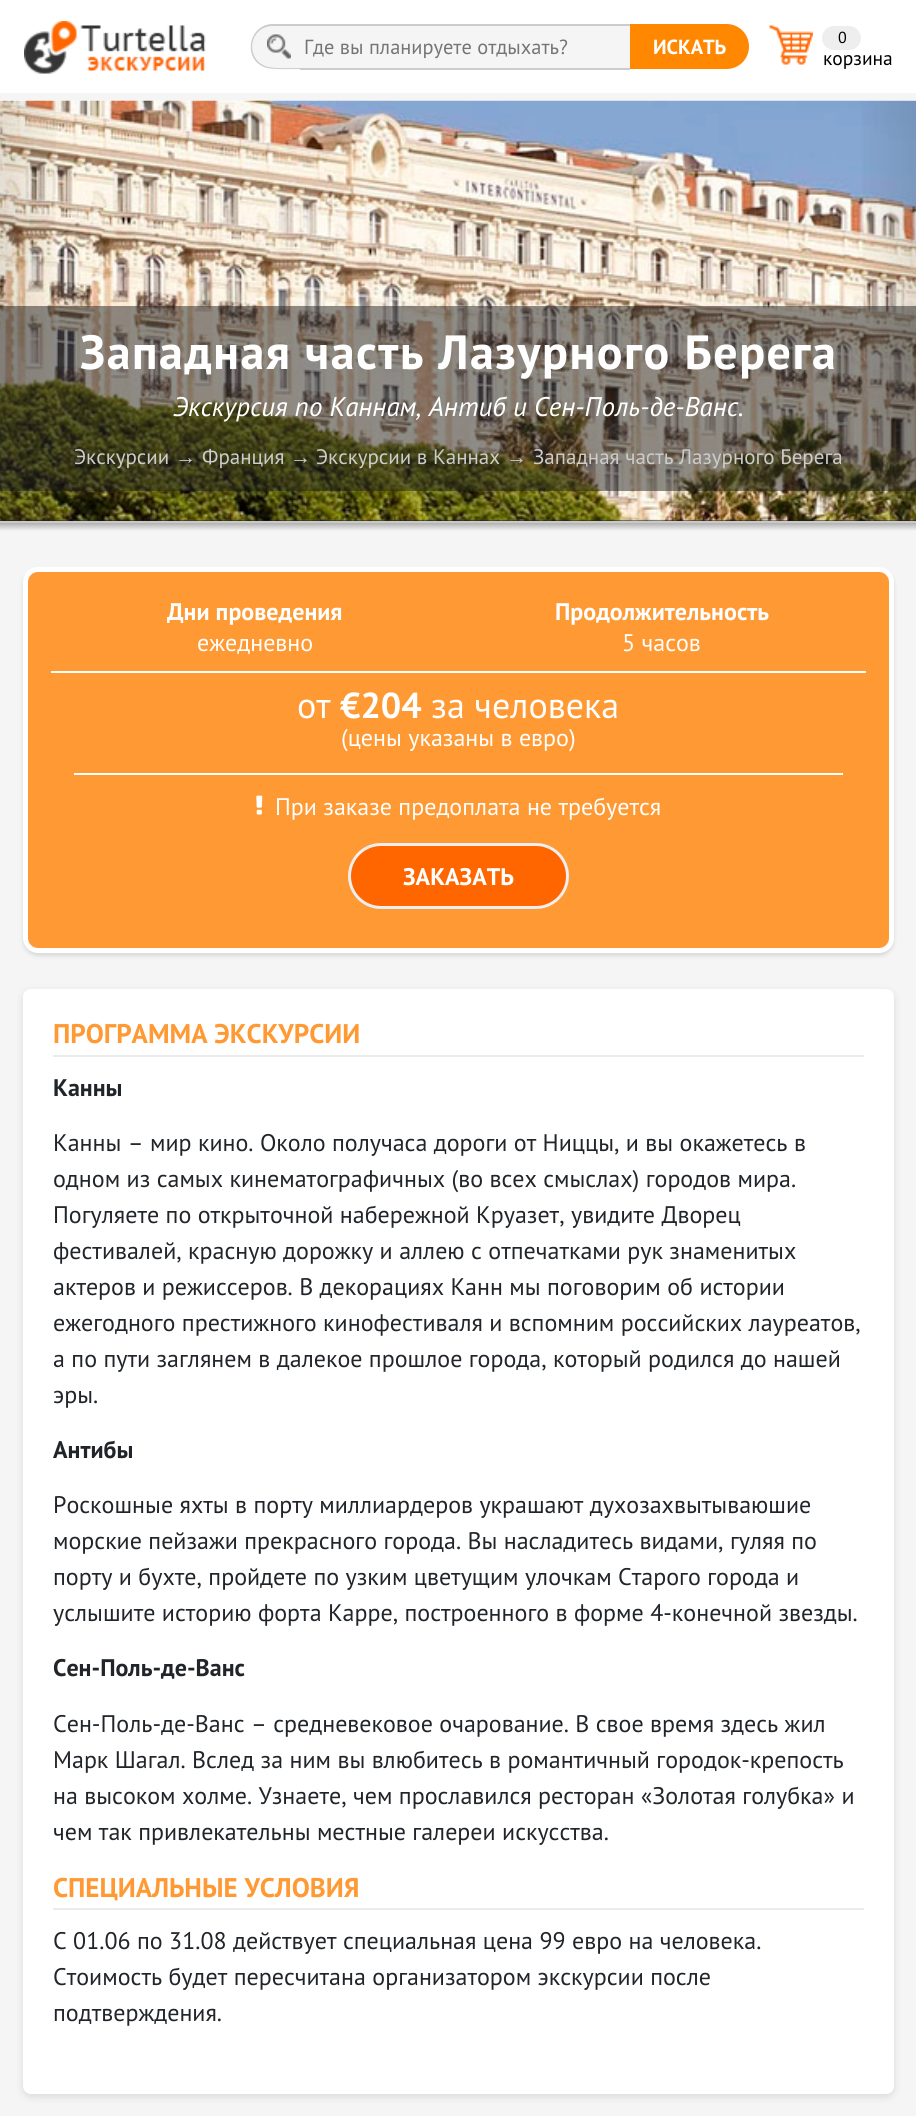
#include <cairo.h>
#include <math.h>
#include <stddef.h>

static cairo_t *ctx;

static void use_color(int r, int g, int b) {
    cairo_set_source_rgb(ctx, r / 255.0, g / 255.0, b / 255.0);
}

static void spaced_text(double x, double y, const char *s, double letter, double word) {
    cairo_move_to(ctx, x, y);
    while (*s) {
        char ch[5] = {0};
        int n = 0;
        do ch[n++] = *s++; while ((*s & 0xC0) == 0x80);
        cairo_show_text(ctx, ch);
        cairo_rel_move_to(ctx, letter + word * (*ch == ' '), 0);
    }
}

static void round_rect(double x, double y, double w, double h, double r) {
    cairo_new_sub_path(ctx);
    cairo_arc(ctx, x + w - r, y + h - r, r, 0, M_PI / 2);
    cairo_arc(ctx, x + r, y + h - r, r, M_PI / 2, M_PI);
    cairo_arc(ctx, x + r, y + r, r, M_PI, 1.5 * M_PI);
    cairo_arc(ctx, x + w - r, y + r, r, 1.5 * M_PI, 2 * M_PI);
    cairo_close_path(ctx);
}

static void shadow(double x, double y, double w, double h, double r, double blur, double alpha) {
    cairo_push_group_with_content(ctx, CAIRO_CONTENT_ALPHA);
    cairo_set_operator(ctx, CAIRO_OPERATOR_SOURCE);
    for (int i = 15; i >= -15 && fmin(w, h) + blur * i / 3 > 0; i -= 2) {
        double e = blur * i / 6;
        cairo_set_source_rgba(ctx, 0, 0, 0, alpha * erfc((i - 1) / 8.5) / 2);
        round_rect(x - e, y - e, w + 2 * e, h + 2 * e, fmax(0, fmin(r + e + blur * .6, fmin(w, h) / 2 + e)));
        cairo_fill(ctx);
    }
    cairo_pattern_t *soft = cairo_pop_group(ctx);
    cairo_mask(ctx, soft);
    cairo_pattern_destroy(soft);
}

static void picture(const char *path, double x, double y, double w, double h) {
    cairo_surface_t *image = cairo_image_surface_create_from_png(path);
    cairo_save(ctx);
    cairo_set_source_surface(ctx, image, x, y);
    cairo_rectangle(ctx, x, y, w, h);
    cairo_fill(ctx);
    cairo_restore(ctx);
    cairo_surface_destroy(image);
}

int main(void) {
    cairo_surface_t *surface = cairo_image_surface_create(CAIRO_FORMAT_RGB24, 916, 2116);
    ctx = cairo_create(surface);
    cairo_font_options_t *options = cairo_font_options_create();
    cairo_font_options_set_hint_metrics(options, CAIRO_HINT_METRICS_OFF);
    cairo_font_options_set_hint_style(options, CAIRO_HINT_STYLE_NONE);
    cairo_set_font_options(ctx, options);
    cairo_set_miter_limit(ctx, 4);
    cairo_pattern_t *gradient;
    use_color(245, 245, 245);
    cairo_paint(ctx);
    use_color(255, 255, 255);
    cairo_rectangle(ctx, 0, 0, 916, 93);
    cairo_fill(ctx);
    picture("img1.png", 24, 21, 182, 53);
    use_color(245, 245, 245);
    cairo_new_path(ctx);
    cairo_move_to(ctx, 273.5, 24);
    cairo_line_to(ctx, 300, 24);
    cairo_line_to(ctx, 300, 69);
    cairo_line_to(ctx, 273.5, 69);
    cairo_curve_to(ctx, 261, 69, 251, 59, 251, 46.5);
    cairo_curve_to(ctx, 251, 34, 261, 24, 273.5, 24);
    cairo_close_path(ctx);
    cairo_fill(ctx);
    use_color(204, 204, 204);
    cairo_set_fill_rule(ctx, CAIRO_FILL_RULE_EVEN_ODD);
    cairo_new_path(ctx);
    cairo_move_to(ctx, 273, 24);
    cairo_line_to(ctx, 300, 24);
    cairo_line_to(ctx, 300, 69);
    cairo_curve_to(ctx, 291, 69, 272, 70, 264, 67);
    cairo_curve_to(ctx, 242, 58, 249, 24, 273, 24);
    cairo_close_path(ctx);
    cairo_move_to(ctx, 273, 26);
    cairo_line_to(ctx, 300, 26);
    cairo_line_to(ctx, 300, 68);
    cairo_curve_to(ctx, 291, 68, 272, 69, 265, 66);
    cairo_curve_to(ctx, 244, 57, 250, 26, 273, 26);
    cairo_close_path(ctx);
    cairo_fill(ctx);
    picture("img2.png", 267, 34, 24, 25);
    use_color(245, 245, 245);
    cairo_rectangle(ctx, 300, 26, 330, 42);
    cairo_fill(ctx);
    use_color(204, 204, 204);
    cairo_rectangle(ctx, 300, 24, 330, 2);
    cairo_fill(ctx);
    cairo_rectangle(ctx, 300, 68, 330, 2);
    cairo_fill(ctx);
    cairo_select_font_face(ctx, "PT Sans", CAIRO_FONT_SLANT_NORMAL, CAIRO_FONT_WEIGHT_NORMAL);
    cairo_set_font_size(ctx, 20.4);
    use_color(117, 117, 117);
    cairo_move_to(ctx, 304, 54);
    cairo_show_text(ctx, "Где вы планируете отдыхать?");
    use_color(255, 136, 0);
    cairo_new_path(ctx);
    cairo_move_to(ctx, 630, 24);
    cairo_line_to(ctx, 726.5, 24);
    cairo_curve_to(ctx, 739, 24, 749, 34, 749, 46.5);
    cairo_curve_to(ctx, 749, 59, 739, 69, 726.5, 69);
    cairo_line_to(ctx, 630, 69);
    cairo_close_path(ctx);
    cairo_fill(ctx);
    cairo_select_font_face(ctx, "PT Sans", CAIRO_FONT_SLANT_NORMAL, CAIRO_FONT_WEIGHT_BOLD);
    use_color(255, 255, 255);
    cairo_move_to(ctx, 653, 54);
    cairo_show_text(ctx, "ИСКАТЬ");
    use_color(238, 238, 238);
    round_rect(822, 26, 39, 24, 12);
    cairo_fill(ctx);
    cairo_select_font_face(ctx, "PT Sans", CAIRO_FONT_SLANT_NORMAL, CAIRO_FONT_WEIGHT_NORMAL);
    cairo_set_font_size(ctx, 16);
    use_color(0, 0, 0);
    cairo_move_to(ctx, 838, 43);
    cairo_show_text(ctx, "0");
    picture("img3.png", 769, 25, 44, 40);
    cairo_set_font_size(ctx, 19.5);
    cairo_move_to(ctx, 823, 65);
    cairo_show_text(ctx, "корзина");
    use_color(32, 32, 32);
    cairo_rectangle(ctx, 0, 520, 916, 1);
    cairo_fill(ctx);
    picture("img4.png", 0, 100, 916, 421);
    gradient = cairo_pattern_create_linear(-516, 425, 69, 425);
    cairo_pattern_add_color_stop_rgba(gradient, 0, 0.125, 0.125, 0.125, 1);
    cairo_pattern_add_color_stop_rgba(gradient, 1, 0.125, 0.125, 0.125, 0);
    cairo_set_source(ctx, gradient);
    cairo_pattern_destroy(gradient);
    cairo_rectangle(ctx, 0, 101, 56, 420);
    cairo_fill(ctx);
    gradient = cairo_pattern_create_linear(849, 425, 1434, 425);
    cairo_pattern_add_color_stop_rgba(gradient, 0, 0.125, 0.125, 0.125, 0);
    cairo_pattern_add_color_stop_rgba(gradient, 1, 0.125, 0.125, 0.125, 1);
    cairo_set_source(ctx, gradient);
    cairo_pattern_destroy(gradient);
    cairo_rectangle(ctx, 862, 101, 54, 420);
    cairo_fill(ctx);
    cairo_set_source_rgba(ctx, 0.125, 0.125, 0.125, 0.5);
    cairo_rectangle(ctx, 0, 306, 916, 185);
    cairo_fill(ctx);
    cairo_select_font_face(ctx, "PT Sans", CAIRO_FONT_SLANT_NORMAL, CAIRO_FONT_WEIGHT_BOLD);
    cairo_set_font_size(ctx, 48);
    use_color(255, 255, 255);
    spaced_text(80, 369, "Западная часть Лазурного Берега", 1.5, 0);
    cairo_select_font_face(ctx, "PT Sans", CAIRO_FONT_SLANT_ITALIC, CAIRO_FONT_WEIGHT_NORMAL);
    cairo_set_font_size(ctx, 27);
    cairo_move_to(ctx, 173, 416);
    cairo_show_text(ctx, "Экскурсия по Каннам, Антиб и Сен-Поль-де-Ванс.");
    cairo_select_font_face(ctx, "PT Sans", CAIRO_FONT_SLANT_NORMAL, CAIRO_FONT_WEIGHT_NORMAL);
    cairo_set_font_size(ctx, 21);
    use_color(204, 204, 204);
    cairo_move_to(ctx, 74, 464);
    cairo_show_text(ctx, "Экскурсии");
    cairo_select_font_face(ctx, "Liberation Sans", CAIRO_FONT_SLANT_NORMAL, CAIRO_FONT_WEIGHT_NORMAL);
    cairo_move_to(ctx, 175, 464);
    cairo_show_text(ctx, "→");
    cairo_select_font_face(ctx, "PT Sans", CAIRO_FONT_SLANT_NORMAL, CAIRO_FONT_WEIGHT_NORMAL);
    cairo_move_to(ctx, 202, 464);
    cairo_show_text(ctx, "Франция");
    cairo_select_font_face(ctx, "Liberation Sans", CAIRO_FONT_SLANT_NORMAL, CAIRO_FONT_WEIGHT_NORMAL);
    cairo_move_to(ctx, 290, 464);
    cairo_show_text(ctx, "→");
    cairo_select_font_face(ctx, "PT Sans", CAIRO_FONT_SLANT_NORMAL, CAIRO_FONT_WEIGHT_NORMAL);
    cairo_move_to(ctx, 316, 464);
    cairo_show_text(ctx, "Экскурсии в Каннах");
    cairo_select_font_face(ctx, "Liberation Sans", CAIRO_FONT_SLANT_NORMAL, CAIRO_FONT_WEIGHT_NORMAL);
    cairo_move_to(ctx, 506, 464);
    cairo_show_text(ctx, "→");
    cairo_select_font_face(ctx, "PT Sans", CAIRO_FONT_SLANT_NORMAL, CAIRO_FONT_WEIGHT_NORMAL);
    cairo_move_to(ctx, 533, 464);
    cairo_show_text(ctx, "Западная часть Лазурного Берега");
    gradient = cairo_pattern_create_linear(458, 522, 458, 531);
    cairo_pattern_add_color_stop_rgba(gradient, 0, 0.659, 0.659, 0.659, 1);
    cairo_pattern_add_color_stop_rgba(gradient, 1, 0.961, 0.961, 0.961, 1);
    cairo_set_source(ctx, gradient);
    cairo_pattern_destroy(gradient);
    cairo_rectangle(ctx, 0, 523, 916, 8);
    cairo_fill(ctx);
    use_color(200, 200, 200);
    cairo_rectangle(ctx, 0, 521, 916, 2);
    cairo_fill(ctx);
    use_color(153, 153, 153);
    shadow(23, 570, 871, 386, 15, 2, 0.3);
    use_color(255, 153, 51);
    round_rect(25.5, 569.5, 866, 381, 12.5);
    cairo_fill_preserve(ctx);
    use_color(255, 255, 255);
    cairo_set_line_width(ctx, 5);
    cairo_stroke(ctx);
    cairo_rectangle(ctx, 51, 671, 815, 2);
    cairo_fill(ctx);
    cairo_select_font_face(ctx, "PT Sans", CAIRO_FONT_SLANT_NORMAL, CAIRO_FONT_WEIGHT_BOLD);
    cairo_set_font_size(ctx, 24);
    cairo_move_to(ctx, 167, 620);
    cairo_show_text(ctx, "Дни проведения");
    cairo_select_font_face(ctx, "PT Sans", CAIRO_FONT_SLANT_NORMAL, CAIRO_FONT_WEIGHT_NORMAL);
    cairo_move_to(ctx, 197, 651);
    cairo_show_text(ctx, "ежедневно");
    cairo_select_font_face(ctx, "PT Sans", CAIRO_FONT_SLANT_NORMAL, CAIRO_FONT_WEIGHT_BOLD);
    cairo_move_to(ctx, 555, 620);
    cairo_show_text(ctx, "Продолжительность");
    cairo_select_font_face(ctx, "PT Sans", CAIRO_FONT_SLANT_NORMAL, CAIRO_FONT_WEIGHT_NORMAL);
    cairo_move_to(ctx, 622, 651);
    cairo_show_text(ctx, "5 часов");
    cairo_set_font_size(ctx, 36);
    cairo_move_to(ctx, 297, 718);
    cairo_show_text(ctx, "от");
    cairo_select_font_face(ctx, "PT Sans", CAIRO_FONT_SLANT_NORMAL, CAIRO_FONT_WEIGHT_BOLD);
    cairo_move_to(ctx, 340, 718);
    cairo_show_text(ctx, "€204");
    cairo_select_font_face(ctx, "PT Sans", CAIRO_FONT_SLANT_NORMAL, CAIRO_FONT_WEIGHT_NORMAL);
    cairo_move_to(ctx, 431, 718);
    cairo_show_text(ctx, "за человека");
    cairo_set_font_size(ctx, 24);
    cairo_move_to(ctx, 341, 746);
    cairo_show_text(ctx, "(цены указаны в евро)");
    cairo_rectangle(ctx, 74, 773, 769, 2);
    cairo_fill(ctx);
    picture("img5.png", 256, 795, 7, 20);
    cairo_move_to(ctx, 275, 815);
    cairo_show_text(ctx, "При заказе предоплата не требуется");
    use_color(255, 102, 0);
    round_rect(349.5, 844.5, 218, 63, 31.5);
    cairo_fill_preserve(ctx);
    use_color(238, 238, 238);
    cairo_set_line_width(ctx, 3);
    cairo_stroke(ctx);
    cairo_select_font_face(ctx, "PT Sans", CAIRO_FONT_SLANT_NORMAL, CAIRO_FONT_WEIGHT_BOLD);
    use_color(255, 255, 255);
    cairo_move_to(ctx, 403, 885);
    cairo_show_text(ctx, "ЗАКАЗАТЬ");
    use_color(153, 153, 153);
    shadow(23, 992, 871, 1105, 8, 4, 0.3);
    use_color(255, 255, 255);
    round_rect(23, 989, 871, 1105, 8);
    cairo_fill(ctx);
    use_color(235, 235, 235);
    cairo_rectangle(ctx, 53, 1055, 811, 2);
    cairo_fill(ctx);
    cairo_set_font_size(ctx, 27);
    use_color(255, 153, 51);
    cairo_move_to(ctx, 53, 1043);
    cairo_show_text(ctx, "ПРОГРАММА ЭКСКУРСИИ");
    cairo_set_font_size(ctx, 24);
    use_color(33, 37, 41);
    cairo_move_to(ctx, 53, 1096);
    cairo_show_text(ctx, "Канны");
    cairo_select_font_face(ctx, "PT Sans", CAIRO_FONT_SLANT_NORMAL, CAIRO_FONT_WEIGHT_NORMAL);
    cairo_move_to(ctx, 53, 1151);
    cairo_show_text(ctx, "Канны – мир кино. Около получаса дороги от Ниццы, и вы окажетесь в");
    cairo_move_to(ctx, 53, 1187);
    cairo_show_text(ctx, "одном из самых кинематографичных (во всех смыслах) городов мира.");
    cairo_move_to(ctx, 53, 1223);
    cairo_show_text(ctx, "Погуляете по открыточной набережной Круазет, увидите Дворец");
    cairo_move_to(ctx, 53, 1259);
    cairo_show_text(ctx, "фестивалей, красную дорожку и аллею с отпечатками рук знаменитых");
    cairo_move_to(ctx, 53, 1295);
    cairo_show_text(ctx, "актеров и режиссеров. В декорациях Канн мы поговорим об истории");
    cairo_move_to(ctx, 53, 1331);
    cairo_show_text(ctx, "ежегодного престижного кинофестиваля и вспомним российских лауреатов,");
    cairo_move_to(ctx, 53, 1367);
    cairo_show_text(ctx, "а по пути заглянем в далекое прошлое города, который родился до нашей");
    cairo_move_to(ctx, 53, 1403);
    cairo_show_text(ctx, "эры.");
    cairo_select_font_face(ctx, "PT Sans", CAIRO_FONT_SLANT_NORMAL, CAIRO_FONT_WEIGHT_BOLD);
    cairo_move_to(ctx, 53, 1458);
    cairo_show_text(ctx, "Антибы");
    cairo_select_font_face(ctx, "PT Sans", CAIRO_FONT_SLANT_NORMAL, CAIRO_FONT_WEIGHT_NORMAL);
    cairo_move_to(ctx, 53, 1513);
    cairo_show_text(ctx, "Роскошные яхты в порту миллиардеров украшают духозахвытываюшие");
    cairo_move_to(ctx, 53, 1549);
    cairo_show_text(ctx, "морские пейзажи прекрасного города. Вы насладитесь видами, гуляя по");
    cairo_move_to(ctx, 53, 1585);
    cairo_show_text(ctx, "порту и бухте, пройдете по узким цветущим улочкам Старого города и");
    cairo_move_to(ctx, 53, 1621);
    cairo_show_text(ctx, "услышите историю форта Карре, построенного в форме 4-конечной звезды.");
    cairo_select_font_face(ctx, "PT Sans", CAIRO_FONT_SLANT_NORMAL, CAIRO_FONT_WEIGHT_BOLD);
    cairo_move_to(ctx, 53, 1676);
    cairo_show_text(ctx, "Сен-Поль-де-Ванс");
    cairo_select_font_face(ctx, "PT Sans", CAIRO_FONT_SLANT_NORMAL, CAIRO_FONT_WEIGHT_NORMAL);
    cairo_move_to(ctx, 53, 1732);
    cairo_show_text(ctx, "Сен-Поль-де-Ванс – средневековое очарование. В свое время здесь жил");
    cairo_move_to(ctx, 53, 1768);
    cairo_show_text(ctx, "Марк Шагал. Вслед за ним вы влюбитесь в романтичный городок-крепость");
    cairo_move_to(ctx, 53, 1804);
    cairo_show_text(ctx, "на высоком холме. Узнаете, чем прославился ресторан «Золотая голубка» и");
    cairo_move_to(ctx, 53, 1840);
    cairo_show_text(ctx, "чем так привлекательны местные галереи искусства.");
    use_color(235, 235, 235);
    cairo_rectangle(ctx, 53, 1908, 811, 2);
    cairo_fill(ctx);
    cairo_select_font_face(ctx, "PT Sans", CAIRO_FONT_SLANT_NORMAL, CAIRO_FONT_WEIGHT_BOLD);
    cairo_set_font_size(ctx, 27);
    use_color(255, 153, 51);
    cairo_move_to(ctx, 53, 1897);
    cairo_show_text(ctx, "СПЕЦИАЛЬНЫЕ УСЛОВИЯ");
    cairo_select_font_face(ctx, "PT Sans", CAIRO_FONT_SLANT_NORMAL, CAIRO_FONT_WEIGHT_NORMAL);
    cairo_set_font_size(ctx, 24);
    use_color(33, 37, 41);
    cairo_move_to(ctx, 53, 1949);
    cairo_show_text(ctx, "С 01.06 по 31.08 действует специальная цена 99 евро на человека.");
    cairo_move_to(ctx, 53, 1985);
    cairo_show_text(ctx, "Стоимость будет пересчитана организатором экскурсии после");
    cairo_move_to(ctx, 53, 2021);
    cairo_show_text(ctx, "подтверждения.");
    cairo_surface_write_to_png(surface, "result.png");
    cairo_font_options_destroy(options);
    cairo_destroy(ctx);
    cairo_surface_destroy(surface);
    return 0;
}
